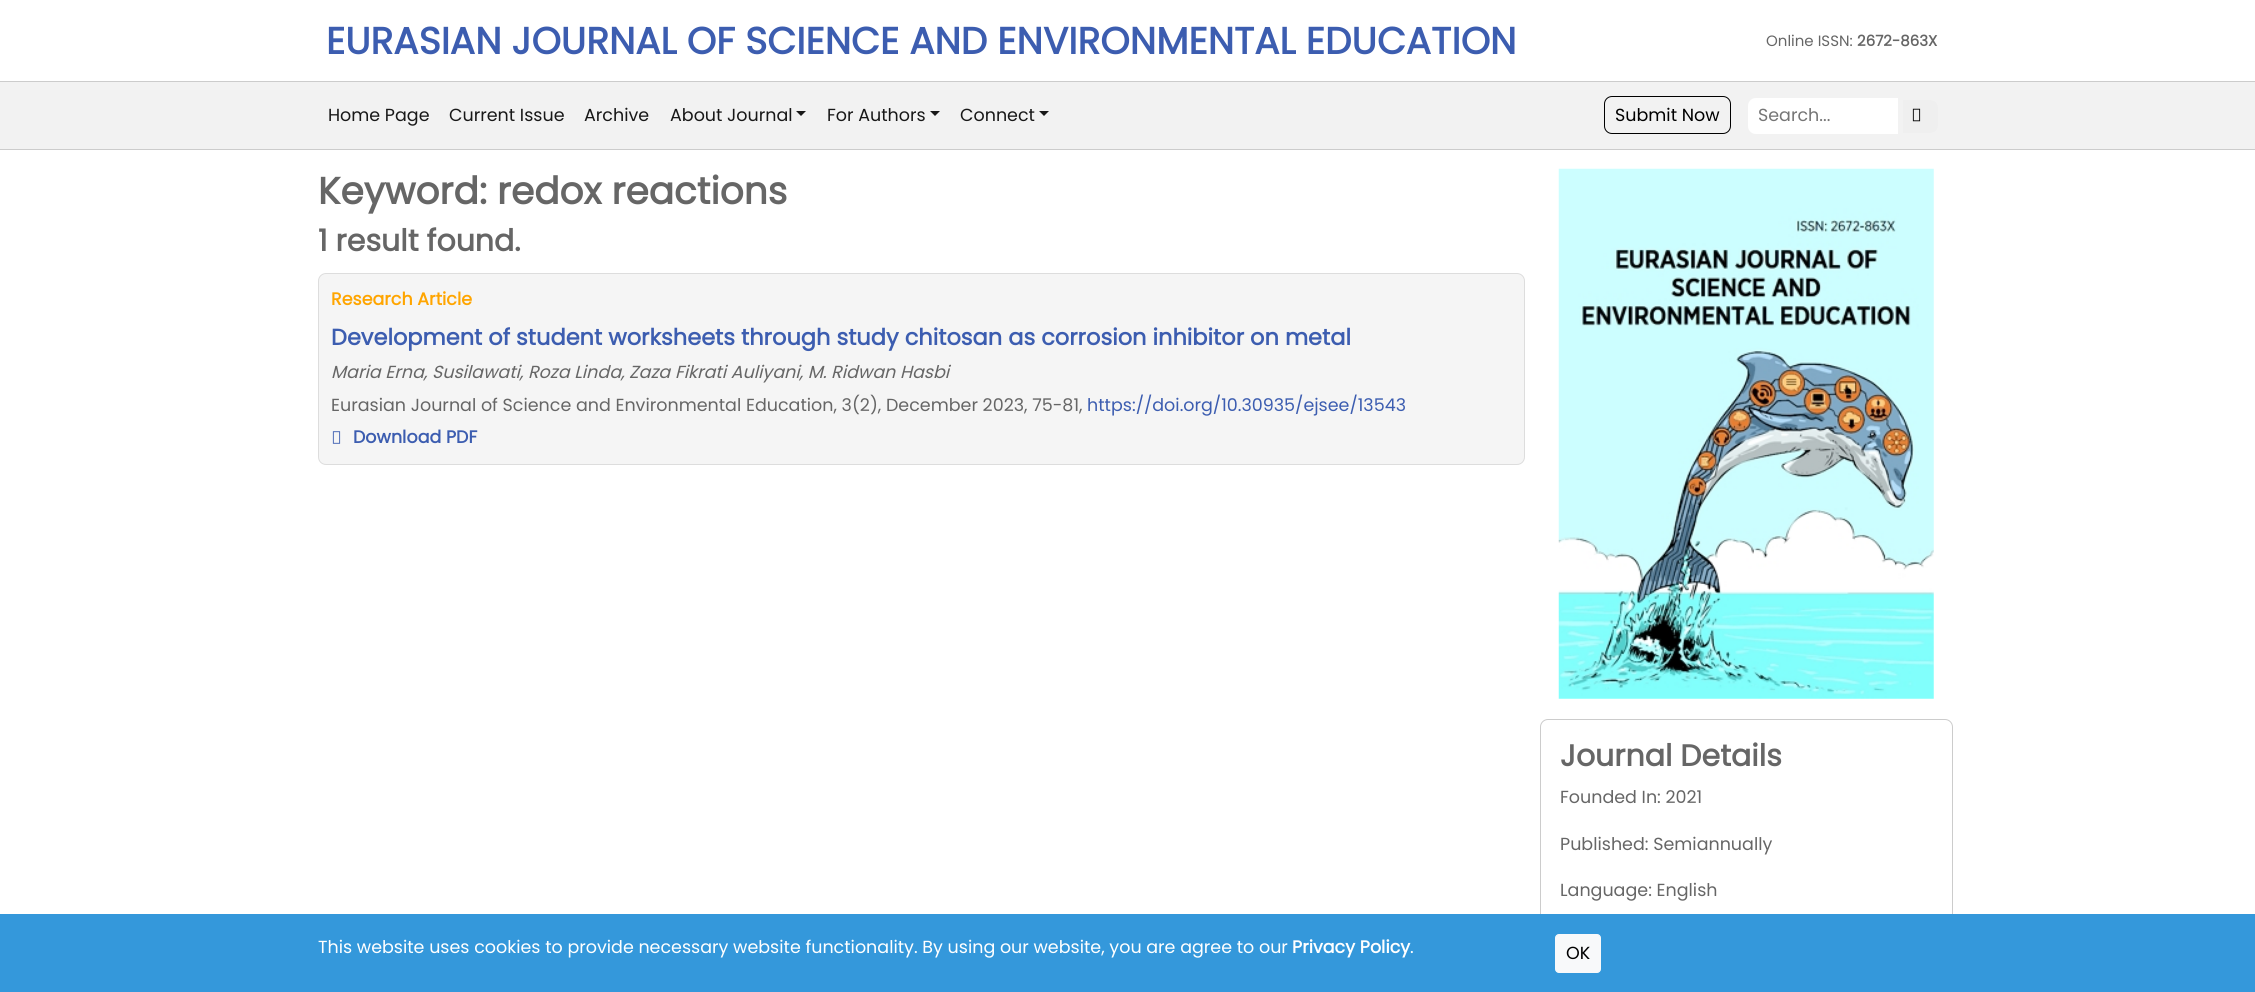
#include <cairo.h>
#include <math.h>
#include <stddef.h>

static cairo_t *ctx;

static void use_color(int r, int g, int b) {
    cairo_set_source_rgb(ctx, r / 255.0, g / 255.0, b / 255.0);
}

static void round_rect(double x, double y, double w, double h, double r) {
    cairo_new_sub_path(ctx);
    cairo_arc(ctx, x + w - r, y + h - r, r, 0, M_PI / 2);
    cairo_arc(ctx, x + r, y + h - r, r, M_PI / 2, M_PI);
    cairo_arc(ctx, x + r, y + r, r, M_PI, 1.5 * M_PI);
    cairo_arc(ctx, x + w - r, y + r, r, 1.5 * M_PI, 2 * M_PI);
    cairo_close_path(ctx);
}

static void picture(const char *path, double x, double y, double w, double h) {
    cairo_surface_t *image = cairo_image_surface_create_from_png(path);
    cairo_save(ctx);
    cairo_set_source_surface(ctx, image, x, y);
    cairo_rectangle(ctx, x, y, w, h);
    cairo_fill(ctx);
    cairo_restore(ctx);
    cairo_surface_destroy(image);
}

int main(void) {
    cairo_surface_t *surface = cairo_image_surface_create(CAIRO_FORMAT_RGB24, 2255, 992);
    ctx = cairo_create(surface);
    cairo_font_options_t *options = cairo_font_options_create();
    cairo_font_options_set_hint_metrics(options, CAIRO_HINT_METRICS_OFF);
    cairo_font_options_set_hint_style(options, CAIRO_HINT_STYLE_NONE);
    cairo_set_font_options(ctx, options);
    cairo_set_miter_limit(ctx, 4);
    use_color(255, 255, 255);
    cairo_paint(ctx);
    cairo_select_font_face(ctx, "Poppins", CAIRO_FONT_SLANT_NORMAL, CAIRO_FONT_WEIGHT_BOLD);
    cairo_set_font_size(ctx, 37.5);
    use_color(60, 93, 176);
    cairo_move_to(ctx, 326, 54);
    cairo_show_text(ctx, "EURASIAN JOURNAL OF SCIENCE AND ENVIRONMENTAL EDUCATION");
    cairo_select_font_face(ctx, "Poppins", CAIRO_FONT_SLANT_NORMAL, CAIRO_FONT_WEIGHT_NORMAL);
    cairo_set_font_size(ctx, 15);
    use_color(102, 102, 102);
    cairo_move_to(ctx, 1766, 46);
    cairo_show_text(ctx, "Online ISSN:");
    cairo_select_font_face(ctx, "Poppins", CAIRO_FONT_SLANT_NORMAL, CAIRO_FONT_WEIGHT_BOLD);
    cairo_move_to(ctx, 1857, 46);
    cairo_show_text(ctx, "2672-863X");
    use_color(242, 242, 242);
    cairo_rectangle(ctx, 0, 82, 2255, 67);
    cairo_fill(ctx);
    use_color(204, 204, 204);
    cairo_rectangle(ctx, 0, 81, 2255, 1);
    cairo_fill(ctx);
    cairo_rectangle(ctx, 0, 149, 2255, 1);
    cairo_fill(ctx);
    cairo_select_font_face(ctx, "Poppins", CAIRO_FONT_SLANT_NORMAL, CAIRO_FONT_WEIGHT_NORMAL);
    cairo_set_font_size(ctx, 17.5);
    use_color(24, 24, 24);
    cairo_move_to(ctx, 328, 121);
    cairo_show_text(ctx, "Home Page");
    cairo_move_to(ctx, 449, 121);
    cairo_show_text(ctx, "Current Issue");
    cairo_move_to(ctx, 584, 121);
    cairo_show_text(ctx, "Archive");
    cairo_move_to(ctx, 670, 121);
    cairo_show_text(ctx, "About Journal");
    cairo_new_path(ctx);
    cairo_move_to(ctx, 796, 111);
    cairo_line_to(ctx, 806, 111);
    cairo_line_to(ctx, 801, 116);
    cairo_close_path(ctx);
    cairo_fill(ctx);
    cairo_move_to(ctx, 827, 121);
    cairo_show_text(ctx, "For Authors");
    cairo_new_path(ctx);
    cairo_move_to(ctx, 930, 111);
    cairo_line_to(ctx, 940, 111);
    cairo_line_to(ctx, 935, 116);
    cairo_close_path(ctx);
    cairo_fill(ctx);
    cairo_move_to(ctx, 960, 121);
    cairo_show_text(ctx, "Connect");
    cairo_new_path(ctx);
    cairo_move_to(ctx, 1039, 111);
    cairo_line_to(ctx, 1049, 111);
    cairo_line_to(ctx, 1044, 116);
    cairo_close_path(ctx);
    cairo_fill(ctx);
    round_rect(1604.5, 96.5, 126, 37, 7.5);
    use_color(0, 0, 0);
    cairo_set_line_width(ctx, 1);
    cairo_stroke(ctx);
    cairo_move_to(ctx, 1615, 121);
    cairo_show_text(ctx, "Submit Now");
    use_color(255, 255, 255);
    cairo_new_path(ctx);
    cairo_move_to(ctx, 1756, 98);
    cairo_line_to(ctx, 1898, 98);
    cairo_line_to(ctx, 1898, 134);
    cairo_line_to(ctx, 1756, 134);
    cairo_curve_to(ctx, 1751.5, 134, 1748, 130.5, 1748, 126);
    cairo_line_to(ctx, 1748, 106);
    cairo_curve_to(ctx, 1748, 101.5, 1751.5, 98, 1756, 98);
    cairo_close_path(ctx);
    cairo_fill(ctx);
    use_color(117, 117, 117);
    cairo_move_to(ctx, 1758, 121);
    cairo_show_text(ctx, "Search...");
    use_color(239, 239, 239);
    cairo_new_path(ctx);
    cairo_move_to(ctx, 1903, 100);
    cairo_line_to(ctx, 1930, 100);
    cairo_curve_to(ctx, 1934.5, 100, 1938, 103.5, 1938, 108);
    cairo_line_to(ctx, 1938, 125);
    cairo_curve_to(ctx, 1938, 129.5, 1934.5, 133, 1930, 133);
    cairo_line_to(ctx, 1903, 133);
    cairo_close_path(ctx);
    cairo_fill(ctx);
    picture("img1.png", 1912, 108, 9, 14);
    cairo_select_font_face(ctx, "Poppins", CAIRO_FONT_SLANT_NORMAL, CAIRO_FONT_WEIGHT_BOLD);
    cairo_set_font_size(ctx, 37.5);
    use_color(102, 102, 102);
    cairo_move_to(ctx, 318, 204);
    cairo_show_text(ctx, "Keyword: redox reactions");
    cairo_set_font_size(ctx, 30);
    cairo_move_to(ctx, 318, 251);
    cairo_show_text(ctx, "1 result found.");
    use_color(245, 245, 245);
    round_rect(318.5, 273.5, 1206, 191, 7.5);
    cairo_fill_preserve(ctx);
    use_color(221, 221, 221);
    cairo_stroke(ctx);
    cairo_set_font_size(ctx, 17.5);
    use_color(255, 165, 0);
    cairo_move_to(ctx, 331, 305);
    cairo_show_text(ctx, "Research Article");
    cairo_set_font_size(ctx, 22.5);
    use_color(60, 93, 176);
    cairo_move_to(ctx, 331, 345);
    cairo_show_text(ctx, "Development of student worksheets through study chitosan as corrosion inhibitor on metal");
    cairo_select_font_face(ctx, "Poppins", CAIRO_FONT_SLANT_ITALIC, CAIRO_FONT_WEIGHT_NORMAL);
    cairo_set_font_size(ctx, 17.5);
    use_color(102, 102, 102);
    cairo_move_to(ctx, 331, 378);
    cairo_show_text(ctx, "Maria Erna, Susilawati, Roza Linda, Zaza Fikrati Auliyani, M. Ridwan Hasbi");
    cairo_select_font_face(ctx, "Poppins", CAIRO_FONT_SLANT_NORMAL, CAIRO_FONT_WEIGHT_NORMAL);
    cairo_move_to(ctx, 331, 411);
    cairo_show_text(ctx, "Eurasian Journal of Science and Environmental Education, 3(2), December 2023, 75-81,");
    use_color(60, 93, 176);
    cairo_move_to(ctx, 1087, 411);
    cairo_show_text(ctx, "https://doi.org/10.30935/ejsee/13543");
    picture("img2.png", 332, 431, 9, 13);
    cairo_select_font_face(ctx, "Poppins", CAIRO_FONT_SLANT_NORMAL, CAIRO_FONT_WEIGHT_BOLD);
    cairo_move_to(ctx, 353, 443);
    cairo_show_text(ctx, "Download PDF");
    picture("img3.png", 1558, 168, 376, 531);
    round_rect(1540.5, 719.5, 412, 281, 7.5);
    use_color(204, 204, 204);
    cairo_stroke(ctx);
    cairo_set_font_size(ctx, 30);
    use_color(102, 102, 102);
    cairo_move_to(ctx, 1560, 766);
    cairo_show_text(ctx, "Journal Details");
    cairo_select_font_face(ctx, "Poppins", CAIRO_FONT_SLANT_NORMAL, CAIRO_FONT_WEIGHT_NORMAL);
    cairo_set_font_size(ctx, 17.5);
    cairo_move_to(ctx, 1560, 803);
    cairo_show_text(ctx, "Founded In: 2021");
    cairo_move_to(ctx, 1560, 850);
    cairo_show_text(ctx, "Published: Semiannually");
    cairo_move_to(ctx, 1560, 896);
    cairo_show_text(ctx, "Language: English");
    use_color(52, 152, 219);
    cairo_rectangle(ctx, 0, 914, 2255, 78);
    cairo_fill(ctx);
    use_color(255, 255, 255);
    cairo_move_to(ctx, 318, 953);
    cairo_show_text(ctx, "This website uses cookies to provide necessary website functionality. By using our website, you are agree to our");
    cairo_select_font_face(ctx, "Poppins", CAIRO_FONT_SLANT_NORMAL, CAIRO_FONT_WEIGHT_BOLD);
    cairo_move_to(ctx, 1292, 953);
    cairo_show_text(ctx, "Privacy Policy");
    cairo_select_font_face(ctx, "Poppins", CAIRO_FONT_SLANT_NORMAL, CAIRO_FONT_WEIGHT_NORMAL);
    cairo_move_to(ctx, 1410, 953);
    cairo_show_text(ctx, ".");
    use_color(248, 249, 250);
    round_rect(1555.5, 934.5, 45, 38, 3.5);
    cairo_fill_preserve(ctx);
    cairo_stroke(ctx);
    use_color(0, 0, 0);
    cairo_move_to(ctx, 1566, 959);
    cairo_show_text(ctx, "OK");
    cairo_surface_write_to_png(surface, "result.png");
    cairo_font_options_destroy(options);
    cairo_destroy(ctx);
    cairo_surface_destroy(surface);
    return 0;
}
